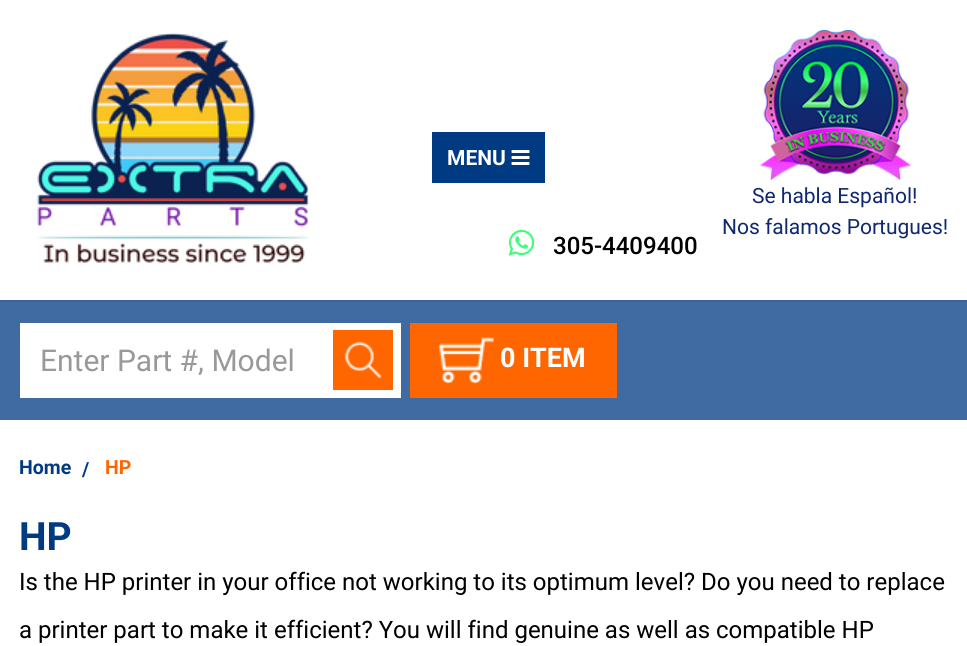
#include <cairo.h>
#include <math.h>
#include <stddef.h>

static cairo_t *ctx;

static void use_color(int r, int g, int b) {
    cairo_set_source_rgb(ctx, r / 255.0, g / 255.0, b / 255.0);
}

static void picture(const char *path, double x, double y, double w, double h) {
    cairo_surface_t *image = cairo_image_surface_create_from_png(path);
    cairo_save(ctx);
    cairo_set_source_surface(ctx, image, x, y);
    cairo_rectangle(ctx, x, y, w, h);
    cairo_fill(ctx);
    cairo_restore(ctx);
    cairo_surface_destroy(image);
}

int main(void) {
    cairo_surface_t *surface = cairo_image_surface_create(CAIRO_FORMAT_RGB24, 967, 646);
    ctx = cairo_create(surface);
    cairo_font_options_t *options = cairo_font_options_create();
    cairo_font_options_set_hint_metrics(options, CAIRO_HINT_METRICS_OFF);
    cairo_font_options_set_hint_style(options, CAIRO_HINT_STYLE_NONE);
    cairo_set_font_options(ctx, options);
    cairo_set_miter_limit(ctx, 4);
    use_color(255, 255, 255);
    cairo_paint(ctx);
    use_color(64, 107, 162);
    cairo_rectangle(ctx, 0, 302, 967, 118);
    cairo_fill(ctx);
    use_color(57, 101, 156);
    cairo_rectangle(ctx, 0, 300, 967, 2);
    cairo_fill(ctx);
    picture("img1.png", 37, 33, 272, 230);
    use_color(0, 58, 131);
    cairo_rectangle(ctx, 432, 132, 113, 51);
    cairo_fill(ctx);
    cairo_select_font_face(ctx, "Roboto", CAIRO_FONT_SLANT_NORMAL, CAIRO_FONT_WEIGHT_BOLD);
    cairo_set_font_size(ctx, 21);
    use_color(255, 255, 255);
    cairo_move_to(ctx, 447, 165);
    cairo_show_text(ctx, "MENU");
    picture("img2.png", 511, 150, 19, 15);
    picture("img3.png", 760, 30, 151, 150);
    cairo_select_font_face(ctx, "Roboto", CAIRO_FONT_SLANT_NORMAL, CAIRO_FONT_WEIGHT_NORMAL);
    use_color(16, 40, 112);
    cairo_move_to(ctx, 752, 203);
    cairo_show_text(ctx, "Se habla Español!");
    cairo_move_to(ctx, 722, 234);
    cairo_show_text(ctx, "Nos falamos Portugues!");
    picture("img4.png", 508, 229, 27, 27);
    cairo_select_font_face(ctx, "Roboto Medium", CAIRO_FONT_SLANT_NORMAL, CAIRO_FONT_WEIGHT_NORMAL);
    cairo_set_font_size(ctx, 24);
    use_color(0, 0, 0);
    cairo_move_to(ctx, 553, 254);
    cairo_show_text(ctx, "305-4409400");
    use_color(255, 255, 255);
    cairo_rectangle(ctx, 20, 323, 381, 75);
    cairo_fill(ctx);
    cairo_select_font_face(ctx, "Roboto", CAIRO_FONT_SLANT_NORMAL, CAIRO_FONT_WEIGHT_NORMAL);
    cairo_set_font_size(ctx, 30);
    use_color(153, 153, 153);
    cairo_move_to(ctx, 40, 371);
    cairo_show_text(ctx, "Enter Part #, Model");
    picture("img5.png", 333, 330, 60, 60);
    use_color(255, 102, 0);
    cairo_rectangle(ctx, 410, 323, 207, 75);
    cairo_fill(ctx);
    picture("img6.png", 439, 337, 55, 47);
    cairo_select_font_face(ctx, "Roboto", CAIRO_FONT_SLANT_NORMAL, CAIRO_FONT_WEIGHT_BOLD);
    cairo_set_font_size(ctx, 27);
    use_color(255, 255, 255);
    cairo_move_to(ctx, 500, 367);
    cairo_show_text(ctx, "0 ITEM");
    cairo_set_font_size(ctx, 19.5);
    use_color(0, 58, 131);
    cairo_move_to(ctx, 19, 474);
    cairo_show_text(ctx, "Home");
    cairo_move_to(ctx, 82, 476);
    cairo_show_text(ctx, "/");
    use_color(255, 102, 0);
    cairo_move_to(ctx, 105, 474);
    cairo_show_text(ctx, "HP");
    cairo_set_font_size(ctx, 39);
    use_color(0, 58, 131);
    cairo_move_to(ctx, 19, 550);
    cairo_show_text(ctx, "HP");
    cairo_select_font_face(ctx, "Roboto", CAIRO_FONT_SLANT_NORMAL, CAIRO_FONT_WEIGHT_NORMAL);
    cairo_set_font_size(ctx, 24);
    use_color(0, 0, 0);
    cairo_move_to(ctx, 19, 590);
    cairo_show_text(ctx, "Is the HP printer in your office not working to its optimum level? Do you need to replace");
    cairo_move_to(ctx, 19, 638);
    cairo_show_text(ctx, "a printer part to make it efficient? You will find genuine as well as compatible HP");
    cairo_surface_write_to_png(surface, "result.png");
    cairo_font_options_destroy(options);
    cairo_destroy(ctx);
    cairo_surface_destroy(surface);
    return 0;
}
